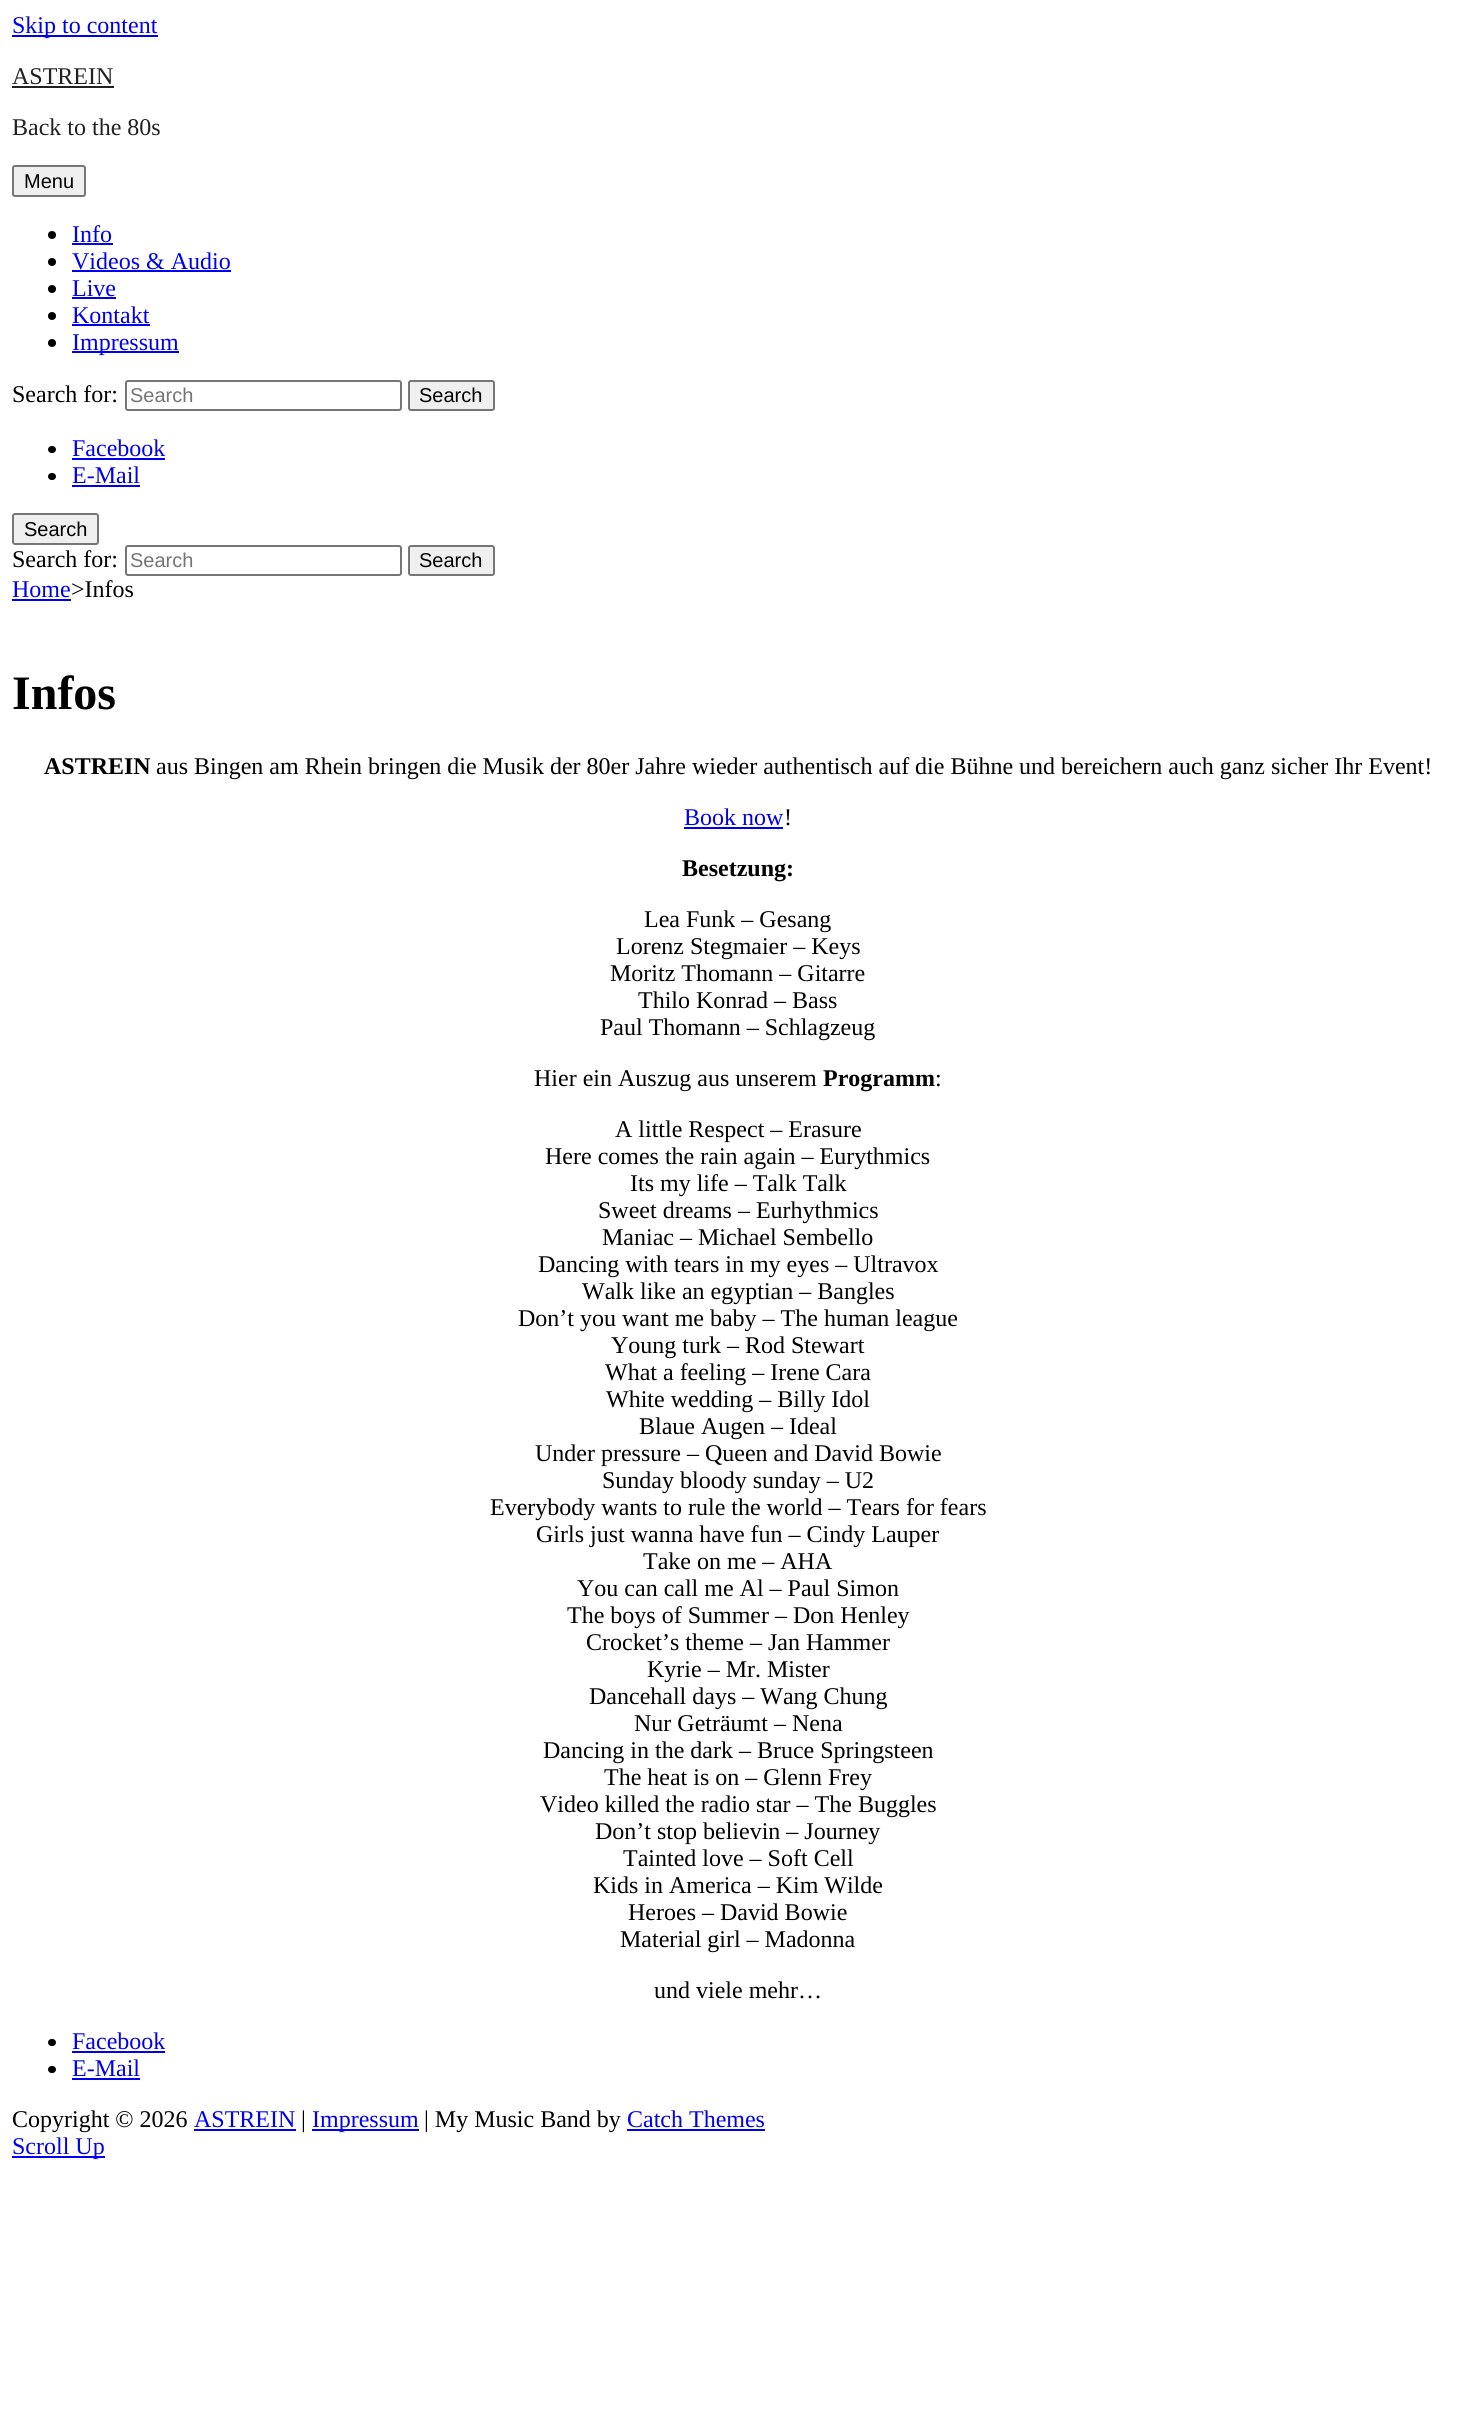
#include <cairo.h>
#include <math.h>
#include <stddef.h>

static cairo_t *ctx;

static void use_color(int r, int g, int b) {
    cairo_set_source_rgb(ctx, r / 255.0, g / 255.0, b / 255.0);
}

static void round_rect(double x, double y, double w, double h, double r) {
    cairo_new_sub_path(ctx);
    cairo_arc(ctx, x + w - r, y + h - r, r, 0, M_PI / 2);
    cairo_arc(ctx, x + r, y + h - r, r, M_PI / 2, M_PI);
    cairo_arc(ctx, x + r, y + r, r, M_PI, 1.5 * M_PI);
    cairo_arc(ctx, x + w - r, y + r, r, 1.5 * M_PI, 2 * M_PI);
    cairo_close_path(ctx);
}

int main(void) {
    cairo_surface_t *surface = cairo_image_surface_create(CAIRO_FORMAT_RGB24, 1476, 2420);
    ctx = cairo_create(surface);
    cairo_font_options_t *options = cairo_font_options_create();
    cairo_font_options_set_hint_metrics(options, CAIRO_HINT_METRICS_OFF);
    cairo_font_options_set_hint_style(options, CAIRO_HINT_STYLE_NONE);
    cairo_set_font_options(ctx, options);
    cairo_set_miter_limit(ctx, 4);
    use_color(255, 255, 255);
    cairo_paint(ctx);
    use_color(0, 0, 238);
    cairo_rectangle(ctx, 12, 35, 146, 2);
    cairo_fill(ctx);
    cairo_select_font_face(ctx, "Liberation Serif", CAIRO_FONT_SLANT_NORMAL, CAIRO_FONT_WEIGHT_NORMAL);
    cairo_set_font_size(ctx, 24);
    cairo_move_to(ctx, 12, 33);
    cairo_show_text(ctx, "Skip to content");
    use_color(33, 33, 33);
    cairo_move_to(ctx, 12, 84);
    cairo_show_text(ctx, "ASTREIN");
    cairo_rectangle(ctx, 12, 86, 102, 2);
    cairo_fill(ctx);
    cairo_move_to(ctx, 12, 135);
    cairo_show_text(ctx, "Back to the 80s");
    use_color(239, 239, 239);
    round_rect(13, 166, 72, 30, 2);
    cairo_fill_preserve(ctx);
    use_color(118, 118, 118);
    cairo_stroke(ctx);
    cairo_select_font_face(ctx, "Liberation Sans", CAIRO_FONT_SLANT_NORMAL, CAIRO_FONT_WEIGHT_NORMAL);
    cairo_set_font_size(ctx, 20);
    use_color(0, 0, 0);
    cairo_move_to(ctx, 24, 188);
    cairo_show_text(ctx, "Menu");
    cairo_new_path(ctx);
    cairo_arc(ctx, 52, 235, 4, 0, 2 * M_PI);
    cairo_fill(ctx);
    cairo_select_font_face(ctx, "Liberation Serif", CAIRO_FONT_SLANT_NORMAL, CAIRO_FONT_WEIGHT_NORMAL);
    cairo_set_font_size(ctx, 24);
    use_color(0, 0, 238);
    cairo_move_to(ctx, 72, 242);
    cairo_show_text(ctx, "Info");
    cairo_rectangle(ctx, 72, 243, 41, 2);
    cairo_fill(ctx);
    use_color(0, 0, 0);
    cairo_arc(ctx, 52, 262, 4, 0, 2 * M_PI);
    cairo_fill(ctx);
    use_color(0, 0, 238);
    cairo_move_to(ctx, 72, 269);
    cairo_show_text(ctx, "Videos & Audio");
    cairo_rectangle(ctx, 72, 270, 159, 2);
    cairo_fill(ctx);
    use_color(0, 0, 0);
    cairo_arc(ctx, 52, 289, 4, 0, 2 * M_PI);
    cairo_fill(ctx);
    use_color(0, 0, 238);
    cairo_move_to(ctx, 72, 296);
    cairo_show_text(ctx, "Live");
    cairo_rectangle(ctx, 72, 297, 44, 2);
    cairo_fill(ctx);
    use_color(0, 0, 0);
    cairo_arc(ctx, 52, 316, 4, 0, 2 * M_PI);
    cairo_fill(ctx);
    use_color(0, 0, 238);
    cairo_move_to(ctx, 72, 323);
    cairo_show_text(ctx, "Kontakt");
    cairo_rectangle(ctx, 72, 324, 78, 2);
    cairo_fill(ctx);
    use_color(0, 0, 0);
    cairo_arc(ctx, 52, 343, 4, 0, 2 * M_PI);
    cairo_fill(ctx);
    use_color(0, 0, 238);
    cairo_rectangle(ctx, 72, 351, 107, 2);
    cairo_fill(ctx);
    cairo_move_to(ctx, 72, 350);
    cairo_show_text(ctx, "Impressum");
    use_color(0, 0, 0);
    cairo_move_to(ctx, 12, 402);
    cairo_show_text(ctx, "Search for:");
    round_rect(126, 381, 275, 29, 2);
    use_color(118, 118, 118);
    cairo_stroke(ctx);
    cairo_select_font_face(ctx, "Liberation Sans", CAIRO_FONT_SLANT_NORMAL, CAIRO_FONT_WEIGHT_NORMAL);
    cairo_set_font_size(ctx, 20);
    use_color(117, 117, 117);
    cairo_move_to(ctx, 130, 402);
    cairo_show_text(ctx, "Search");
    use_color(239, 239, 239);
    round_rect(409, 381, 85, 29, 2);
    cairo_fill_preserve(ctx);
    use_color(118, 118, 118);
    cairo_stroke(ctx);
    use_color(0, 0, 0);
    cairo_move_to(ctx, 419, 402);
    cairo_show_text(ctx, "Search");
    round_rect(48, 446, 8, 7, 3.5);
    cairo_fill(ctx);
    cairo_select_font_face(ctx, "Liberation Serif", CAIRO_FONT_SLANT_NORMAL, CAIRO_FONT_WEIGHT_NORMAL);
    cairo_set_font_size(ctx, 24);
    use_color(0, 0, 238);
    cairo_move_to(ctx, 72, 456);
    cairo_show_text(ctx, "Facebook");
    cairo_rectangle(ctx, 72, 458, 93, 2);
    cairo_fill(ctx);
    use_color(0, 0, 0);
    round_rect(48, 473, 8, 7, 3.5);
    cairo_fill(ctx);
    use_color(0, 0, 238);
    cairo_move_to(ctx, 72, 483);
    cairo_show_text(ctx, "E-Mail");
    cairo_rectangle(ctx, 72, 485, 68, 2);
    cairo_fill(ctx);
    use_color(239, 239, 239);
    round_rect(13, 514, 85, 30, 2);
    cairo_fill_preserve(ctx);
    use_color(118, 118, 118);
    cairo_stroke(ctx);
    cairo_select_font_face(ctx, "Liberation Sans", CAIRO_FONT_SLANT_NORMAL, CAIRO_FONT_WEIGHT_NORMAL);
    cairo_set_font_size(ctx, 20);
    use_color(0, 0, 0);
    cairo_move_to(ctx, 24, 536);
    cairo_show_text(ctx, "Search");
    cairo_select_font_face(ctx, "Liberation Serif", CAIRO_FONT_SLANT_NORMAL, CAIRO_FONT_WEIGHT_NORMAL);
    cairo_set_font_size(ctx, 24);
    cairo_move_to(ctx, 12, 567);
    cairo_show_text(ctx, "Search for:");
    round_rect(126, 546, 275, 29, 2);
    use_color(118, 118, 118);
    cairo_stroke(ctx);
    cairo_select_font_face(ctx, "Liberation Sans", CAIRO_FONT_SLANT_NORMAL, CAIRO_FONT_WEIGHT_NORMAL);
    cairo_set_font_size(ctx, 20);
    use_color(117, 117, 117);
    cairo_move_to(ctx, 130, 567);
    cairo_show_text(ctx, "Search");
    use_color(239, 239, 239);
    round_rect(409, 546, 85, 29, 2);
    cairo_fill_preserve(ctx);
    use_color(118, 118, 118);
    cairo_stroke(ctx);
    use_color(0, 0, 0);
    cairo_move_to(ctx, 419, 567);
    cairo_show_text(ctx, "Search");
    cairo_select_font_face(ctx, "Liberation Serif", CAIRO_FONT_SLANT_NORMAL, CAIRO_FONT_WEIGHT_NORMAL);
    cairo_set_font_size(ctx, 24);
    use_color(0, 0, 238);
    cairo_move_to(ctx, 12, 597);
    cairo_show_text(ctx, "Home");
    cairo_rectangle(ctx, 12, 599, 59, 2);
    cairo_fill(ctx);
    use_color(0, 0, 0);
    cairo_move_to(ctx, 71, 597);
    cairo_show_text(ctx, ">Infos");
    cairo_select_font_face(ctx, "Liberation Serif", CAIRO_FONT_SLANT_NORMAL, CAIRO_FONT_WEIGHT_BOLD);
    cairo_set_font_size(ctx, 48);
    cairo_move_to(ctx, 12, 709);
    cairo_show_text(ctx, "Infos");
    cairo_set_font_size(ctx, 24);
    cairo_move_to(ctx, 44, 774);
    cairo_show_text(ctx, "ASTREIN");
    cairo_select_font_face(ctx, "Liberation Serif", CAIRO_FONT_SLANT_NORMAL, CAIRO_FONT_WEIGHT_NORMAL);
    cairo_move_to(ctx, 156, 774);
    cairo_show_text(ctx, "aus Bingen am Rhein bringen die Musik der 80er Jahre wieder authentisch auf die Bühne und bereichern auch ganz sicher Ihr Event!");
    use_color(0, 0, 238);
    cairo_move_to(ctx, 684, 825);
    cairo_show_text(ctx, "Book now");
    cairo_rectangle(ctx, 684, 827, 99, 2);
    cairo_fill(ctx);
    use_color(0, 0, 0);
    cairo_move_to(ctx, 784, 825);
    cairo_show_text(ctx, "!");
    cairo_select_font_face(ctx, "Liberation Serif", CAIRO_FONT_SLANT_NORMAL, CAIRO_FONT_WEIGHT_BOLD);
    cairo_move_to(ctx, 682, 876);
    cairo_show_text(ctx, "Besetzung:");
    cairo_select_font_face(ctx, "Liberation Serif", CAIRO_FONT_SLANT_NORMAL, CAIRO_FONT_WEIGHT_NORMAL);
    cairo_move_to(ctx, 644, 927);
    cairo_show_text(ctx, "Lea Funk – Gesang");
    cairo_move_to(ctx, 616, 954);
    cairo_show_text(ctx, "Lorenz Stegmaier – Keys");
    cairo_move_to(ctx, 610, 981);
    cairo_show_text(ctx, "Moritz Thomann – Gitarre");
    cairo_move_to(ctx, 638, 1008);
    cairo_show_text(ctx, "Thilo Konrad – Bass");
    cairo_move_to(ctx, 600, 1035);
    cairo_show_text(ctx, "Paul Thomann – Schlagzeug");
    cairo_move_to(ctx, 534, 1086);
    cairo_show_text(ctx, "Hier ein Auszug aus unserem");
    cairo_select_font_face(ctx, "Liberation Serif", CAIRO_FONT_SLANT_NORMAL, CAIRO_FONT_WEIGHT_BOLD);
    cairo_move_to(ctx, 823, 1086);
    cairo_show_text(ctx, "Programm");
    cairo_select_font_face(ctx, "Liberation Serif", CAIRO_FONT_SLANT_NORMAL, CAIRO_FONT_WEIGHT_NORMAL);
    cairo_move_to(ctx, 935, 1086);
    cairo_show_text(ctx, ":");
    cairo_move_to(ctx, 615, 1137);
    cairo_show_text(ctx, "A little Respect – Erasure");
    cairo_move_to(ctx, 545, 1164);
    cairo_show_text(ctx, "Here comes the rain again – Eurythmics");
    cairo_move_to(ctx, 630, 1191);
    cairo_show_text(ctx, "Its my life – Talk Talk");
    cairo_move_to(ctx, 598, 1218);
    cairo_show_text(ctx, "Sweet dreams – Eurhythmics");
    cairo_move_to(ctx, 602, 1245);
    cairo_show_text(ctx, "Maniac – Michael Sembello");
    cairo_move_to(ctx, 538, 1272);
    cairo_show_text(ctx, "Dancing with tears in my eyes – Ultravox");
    cairo_move_to(ctx, 582, 1299);
    cairo_show_text(ctx, "Walk like an egyptian – Bangles");
    cairo_move_to(ctx, 518, 1326);
    cairo_show_text(ctx, "Don’t you want me baby – The human league");
    cairo_move_to(ctx, 611, 1353);
    cairo_show_text(ctx, "Young turk – Rod Stewart");
    cairo_move_to(ctx, 605, 1380);
    cairo_show_text(ctx, "What a feeling – Irene Cara");
    cairo_move_to(ctx, 606, 1407);
    cairo_show_text(ctx, "White wedding – Billy Idol");
    cairo_move_to(ctx, 639, 1434);
    cairo_show_text(ctx, "Blaue Augen – Ideal");
    cairo_move_to(ctx, 535, 1461);
    cairo_show_text(ctx, "Under pressure – Queen and David Bowie");
    cairo_move_to(ctx, 602, 1488);
    cairo_show_text(ctx, "Sunday bloody sunday – U2");
    cairo_move_to(ctx, 490, 1515);
    cairo_show_text(ctx, "Everybody wants to rule the world – Tears for fears");
    cairo_move_to(ctx, 536, 1542);
    cairo_show_text(ctx, "Girls just wanna have fun – Cindy Lauper");
    cairo_move_to(ctx, 643, 1569);
    cairo_show_text(ctx, "Take on me – AHA");
    cairo_move_to(ctx, 577, 1596);
    cairo_show_text(ctx, "You can call me Al – Paul Simon");
    cairo_move_to(ctx, 567, 1623);
    cairo_show_text(ctx, "The boys of Summer – Don Henley");
    cairo_move_to(ctx, 586, 1650);
    cairo_show_text(ctx, "Crocket’s theme – Jan Hammer");
    cairo_move_to(ctx, 647, 1677);
    cairo_show_text(ctx, "Kyrie – Mr. Mister");
    cairo_move_to(ctx, 589, 1704);
    cairo_show_text(ctx, "Dancehall days – Wang Chung");
    cairo_move_to(ctx, 634, 1731);
    cairo_show_text(ctx, "Nur Geträumt – Nena");
    cairo_move_to(ctx, 543, 1758);
    cairo_show_text(ctx, "Dancing in the dark – Bruce Springsteen");
    cairo_move_to(ctx, 604, 1785);
    cairo_show_text(ctx, "The heat is on – Glenn Frey");
    cairo_move_to(ctx, 540, 1812);
    cairo_show_text(ctx, "Video killed the radio star – The Buggles");
    cairo_move_to(ctx, 595, 1839);
    cairo_show_text(ctx, "Don’t stop believin – Journey");
    cairo_move_to(ctx, 623, 1866);
    cairo_show_text(ctx, "Tainted love – Soft Cell");
    cairo_move_to(ctx, 593, 1893);
    cairo_show_text(ctx, "Kids in America – Kim Wilde");
    cairo_move_to(ctx, 628, 1920);
    cairo_show_text(ctx, "Heroes – David Bowie");
    cairo_move_to(ctx, 620, 1947);
    cairo_show_text(ctx, "Material girl – Madonna");
    cairo_move_to(ctx, 654, 1998);
    cairo_show_text(ctx, "und viele mehr…");
    round_rect(48, 2039, 8, 7, 3.5);
    cairo_fill(ctx);
    use_color(0, 0, 238);
    cairo_move_to(ctx, 72, 2049);
    cairo_show_text(ctx, "Facebook");
    cairo_rectangle(ctx, 72, 2051, 93, 2);
    cairo_fill(ctx);
    use_color(0, 0, 0);
    round_rect(48, 2066, 8, 7, 3.5);
    cairo_fill(ctx);
    use_color(0, 0, 238);
    cairo_move_to(ctx, 72, 2076);
    cairo_show_text(ctx, "E-Mail");
    cairo_rectangle(ctx, 72, 2078, 68, 2);
    cairo_fill(ctx);
    use_color(0, 0, 0);
    cairo_move_to(ctx, 12, 2127);
    cairo_show_text(ctx, "Copyright © 2026");
    use_color(0, 0, 238);
    cairo_move_to(ctx, 194, 2127);
    cairo_show_text(ctx, "ASTREIN");
    cairo_rectangle(ctx, 194, 2129, 102, 2);
    cairo_fill(ctx);
    use_color(0, 0, 0);
    cairo_move_to(ctx, 301, 2127);
    cairo_show_text(ctx, "|");
    use_color(0, 0, 238);
    cairo_rectangle(ctx, 312, 2129, 107, 2);
    cairo_fill(ctx);
    cairo_move_to(ctx, 312, 2127);
    cairo_show_text(ctx, "Impressum");
    use_color(0, 0, 0);
    cairo_move_to(ctx, 424, 2127);
    cairo_show_text(ctx, "| My Music Band by");
    use_color(0, 0, 238);
    cairo_move_to(ctx, 627, 2127);
    cairo_show_text(ctx, "Catch Themes");
    cairo_rectangle(ctx, 627, 2129, 138, 2);
    cairo_fill(ctx);
    cairo_rectangle(ctx, 12, 2156, 93, 2);
    cairo_fill(ctx);
    cairo_move_to(ctx, 12, 2154);
    cairo_show_text(ctx, "Scroll Up");
    cairo_surface_write_to_png(surface, "result.png");
    cairo_font_options_destroy(options);
    cairo_destroy(ctx);
    cairo_surface_destroy(surface);
    return 0;
}
